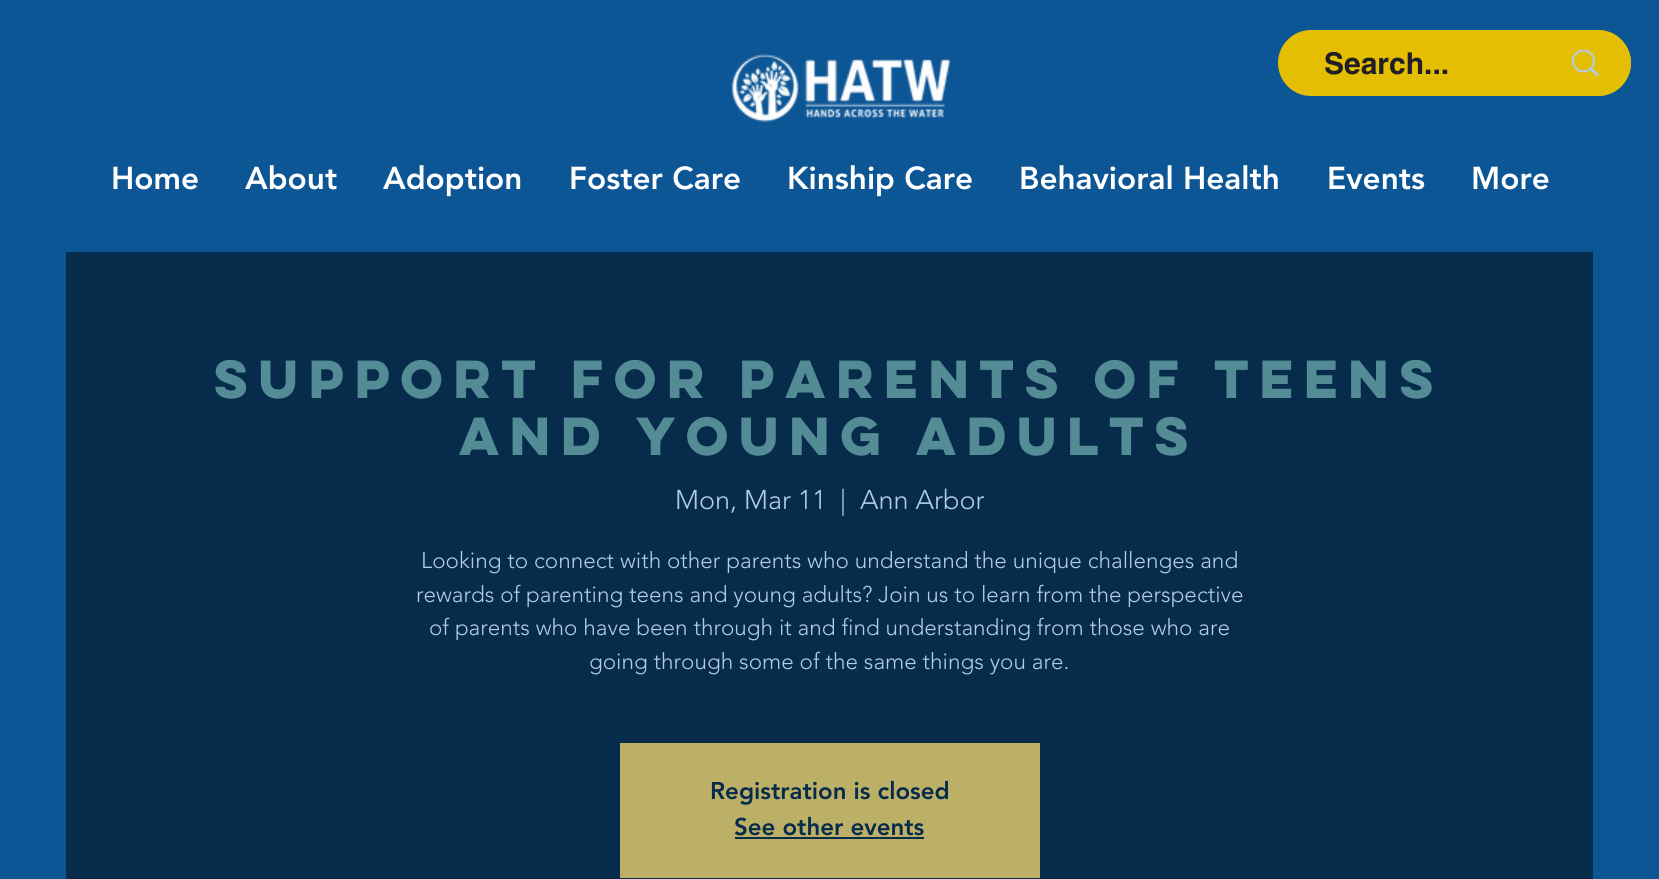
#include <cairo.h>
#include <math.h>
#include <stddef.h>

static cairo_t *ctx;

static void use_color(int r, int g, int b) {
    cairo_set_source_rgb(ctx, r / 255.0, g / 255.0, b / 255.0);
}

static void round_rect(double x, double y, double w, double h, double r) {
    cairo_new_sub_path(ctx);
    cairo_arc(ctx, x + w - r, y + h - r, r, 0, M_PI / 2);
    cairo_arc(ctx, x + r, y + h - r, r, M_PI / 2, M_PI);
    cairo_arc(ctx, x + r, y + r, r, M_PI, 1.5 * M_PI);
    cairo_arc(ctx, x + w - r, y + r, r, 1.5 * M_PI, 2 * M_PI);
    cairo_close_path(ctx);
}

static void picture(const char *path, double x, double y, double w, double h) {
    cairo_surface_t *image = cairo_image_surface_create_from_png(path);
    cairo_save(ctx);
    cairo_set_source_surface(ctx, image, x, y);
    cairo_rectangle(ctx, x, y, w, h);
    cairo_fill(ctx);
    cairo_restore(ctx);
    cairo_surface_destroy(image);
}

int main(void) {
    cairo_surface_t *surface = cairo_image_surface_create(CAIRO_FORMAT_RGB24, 1659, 879);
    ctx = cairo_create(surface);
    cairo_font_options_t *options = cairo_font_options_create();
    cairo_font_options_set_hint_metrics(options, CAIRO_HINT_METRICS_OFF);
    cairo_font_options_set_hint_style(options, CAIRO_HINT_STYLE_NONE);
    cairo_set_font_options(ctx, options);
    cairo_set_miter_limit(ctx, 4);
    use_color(13, 86, 150);
    cairo_paint(ctx);
    picture("img1.png", 731, 53, 220, 69);
    use_color(227, 190, 2);
    round_rect(1278, 30, 353, 66, 33);
    cairo_fill(ctx);
    cairo_select_font_face(ctx, "helvetica", CAIRO_FONT_SLANT_NORMAL, CAIRO_FONT_WEIGHT_BOLD);
    cairo_set_font_size(ctx, 30);
    use_color(32, 29, 40);
    cairo_move_to(ctx, 1324, 74);
    cairo_show_text(ctx, "Search...");
    use_color(227, 190, 2);
    cairo_new_path(ctx);
    cairo_move_to(ctx, 1541, 30);
    cairo_line_to(ctx, 1598, 30);
    cairo_curve_to(ctx, 1616, 30, 1631, 45, 1631, 63);
    cairo_curve_to(ctx, 1631, 81, 1616, 96, 1598, 96);
    cairo_line_to(ctx, 1541, 96);
    cairo_close_path(ctx);
    cairo_fill(ctx);
    picture("img2.png", 1572, 50, 27, 27);
    cairo_select_font_face(ctx, "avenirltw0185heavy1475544 Black", CAIRO_FONT_SLANT_NORMAL, CAIRO_FONT_WEIGHT_NORMAL);
    cairo_set_font_size(ctx, 31.5);
    use_color(255, 255, 255);
    cairo_move_to(ctx, 111, 189);
    cairo_show_text(ctx, "Home");
    cairo_move_to(ctx, 245, 189);
    cairo_show_text(ctx, "About");
    cairo_move_to(ctx, 383, 189);
    cairo_show_text(ctx, "Adoption");
    cairo_move_to(ctx, 569, 189);
    cairo_show_text(ctx, "Foster Care");
    cairo_move_to(ctx, 787, 189);
    cairo_show_text(ctx, "Kinship Care");
    cairo_move_to(ctx, 1019, 189);
    cairo_show_text(ctx, "Behavioral Health");
    cairo_move_to(ctx, 1327, 189);
    cairo_show_text(ctx, "Events");
    cairo_move_to(ctx, 1471, 189);
    cairo_show_text(ctx, "More");
    use_color(7, 43, 75);
    cairo_rectangle(ctx, 66, 252, 1527, 627);
    cairo_fill(ctx);
    cairo_select_font_face(ctx, "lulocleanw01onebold", CAIRO_FONT_SLANT_NORMAL, CAIRO_FONT_WEIGHT_BOLD);
    cairo_set_font_size(ctx, 48);
    use_color(83, 140, 149);
    cairo_move_to(ctx, 214, 398);
    cairo_show_text(ctx, "Support for parents of teens");
    cairo_move_to(ctx, 459, 455);
    cairo_show_text(ctx, "and young adults");
    cairo_select_font_face(ctx, "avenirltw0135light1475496 Light", CAIRO_FONT_SLANT_NORMAL, CAIRO_FONT_WEIGHT_NORMAL);
    cairo_set_font_size(ctx, 27);
    use_color(177, 204, 229);
    cairo_move_to(ctx, 675, 509);
    cairo_show_text(ctx, "Mon, Mar 11");
    cairo_move_to(ctx, 840, 509);
    cairo_show_text(ctx, "|");
    cairo_move_to(ctx, 860, 509);
    cairo_show_text(ctx, "Ann Arbor");
    cairo_set_font_size(ctx, 22.5);
    cairo_move_to(ctx, 421, 568);
    cairo_show_text(ctx, "Looking to connect with other parents who understand the unique challenges and");
    cairo_move_to(ctx, 416, 602);
    cairo_show_text(ctx, "rewards of parenting teens and young adults? Join us to learn from the perspective");
    cairo_move_to(ctx, 429, 635);
    cairo_show_text(ctx, "of parents who have been through it and find understanding from those who are");
    cairo_move_to(ctx, 589, 669);
    cairo_show_text(ctx, "going through some of the same things you are.");
    use_color(188, 176, 103);
    cairo_rectangle(ctx, 620, 743, 420, 135);
    cairo_fill(ctx);
    cairo_select_font_face(ctx, "avenirltw0185heavy1475544 Black", CAIRO_FONT_SLANT_NORMAL, CAIRO_FONT_WEIGHT_NORMAL);
    cairo_set_font_size(ctx, 24);
    use_color(7, 43, 75);
    cairo_move_to(ctx, 710, 799);
    cairo_show_text(ctx, "Registration is closed");
    cairo_move_to(ctx, 734, 835);
    cairo_show_text(ctx, "See other events");
    cairo_rectangle(ctx, 735, 837, 189, 2);
    cairo_fill(ctx);
    cairo_surface_write_to_png(surface, "result.png");
    cairo_font_options_destroy(options);
    cairo_destroy(ctx);
    cairo_surface_destroy(surface);
    return 0;
}
